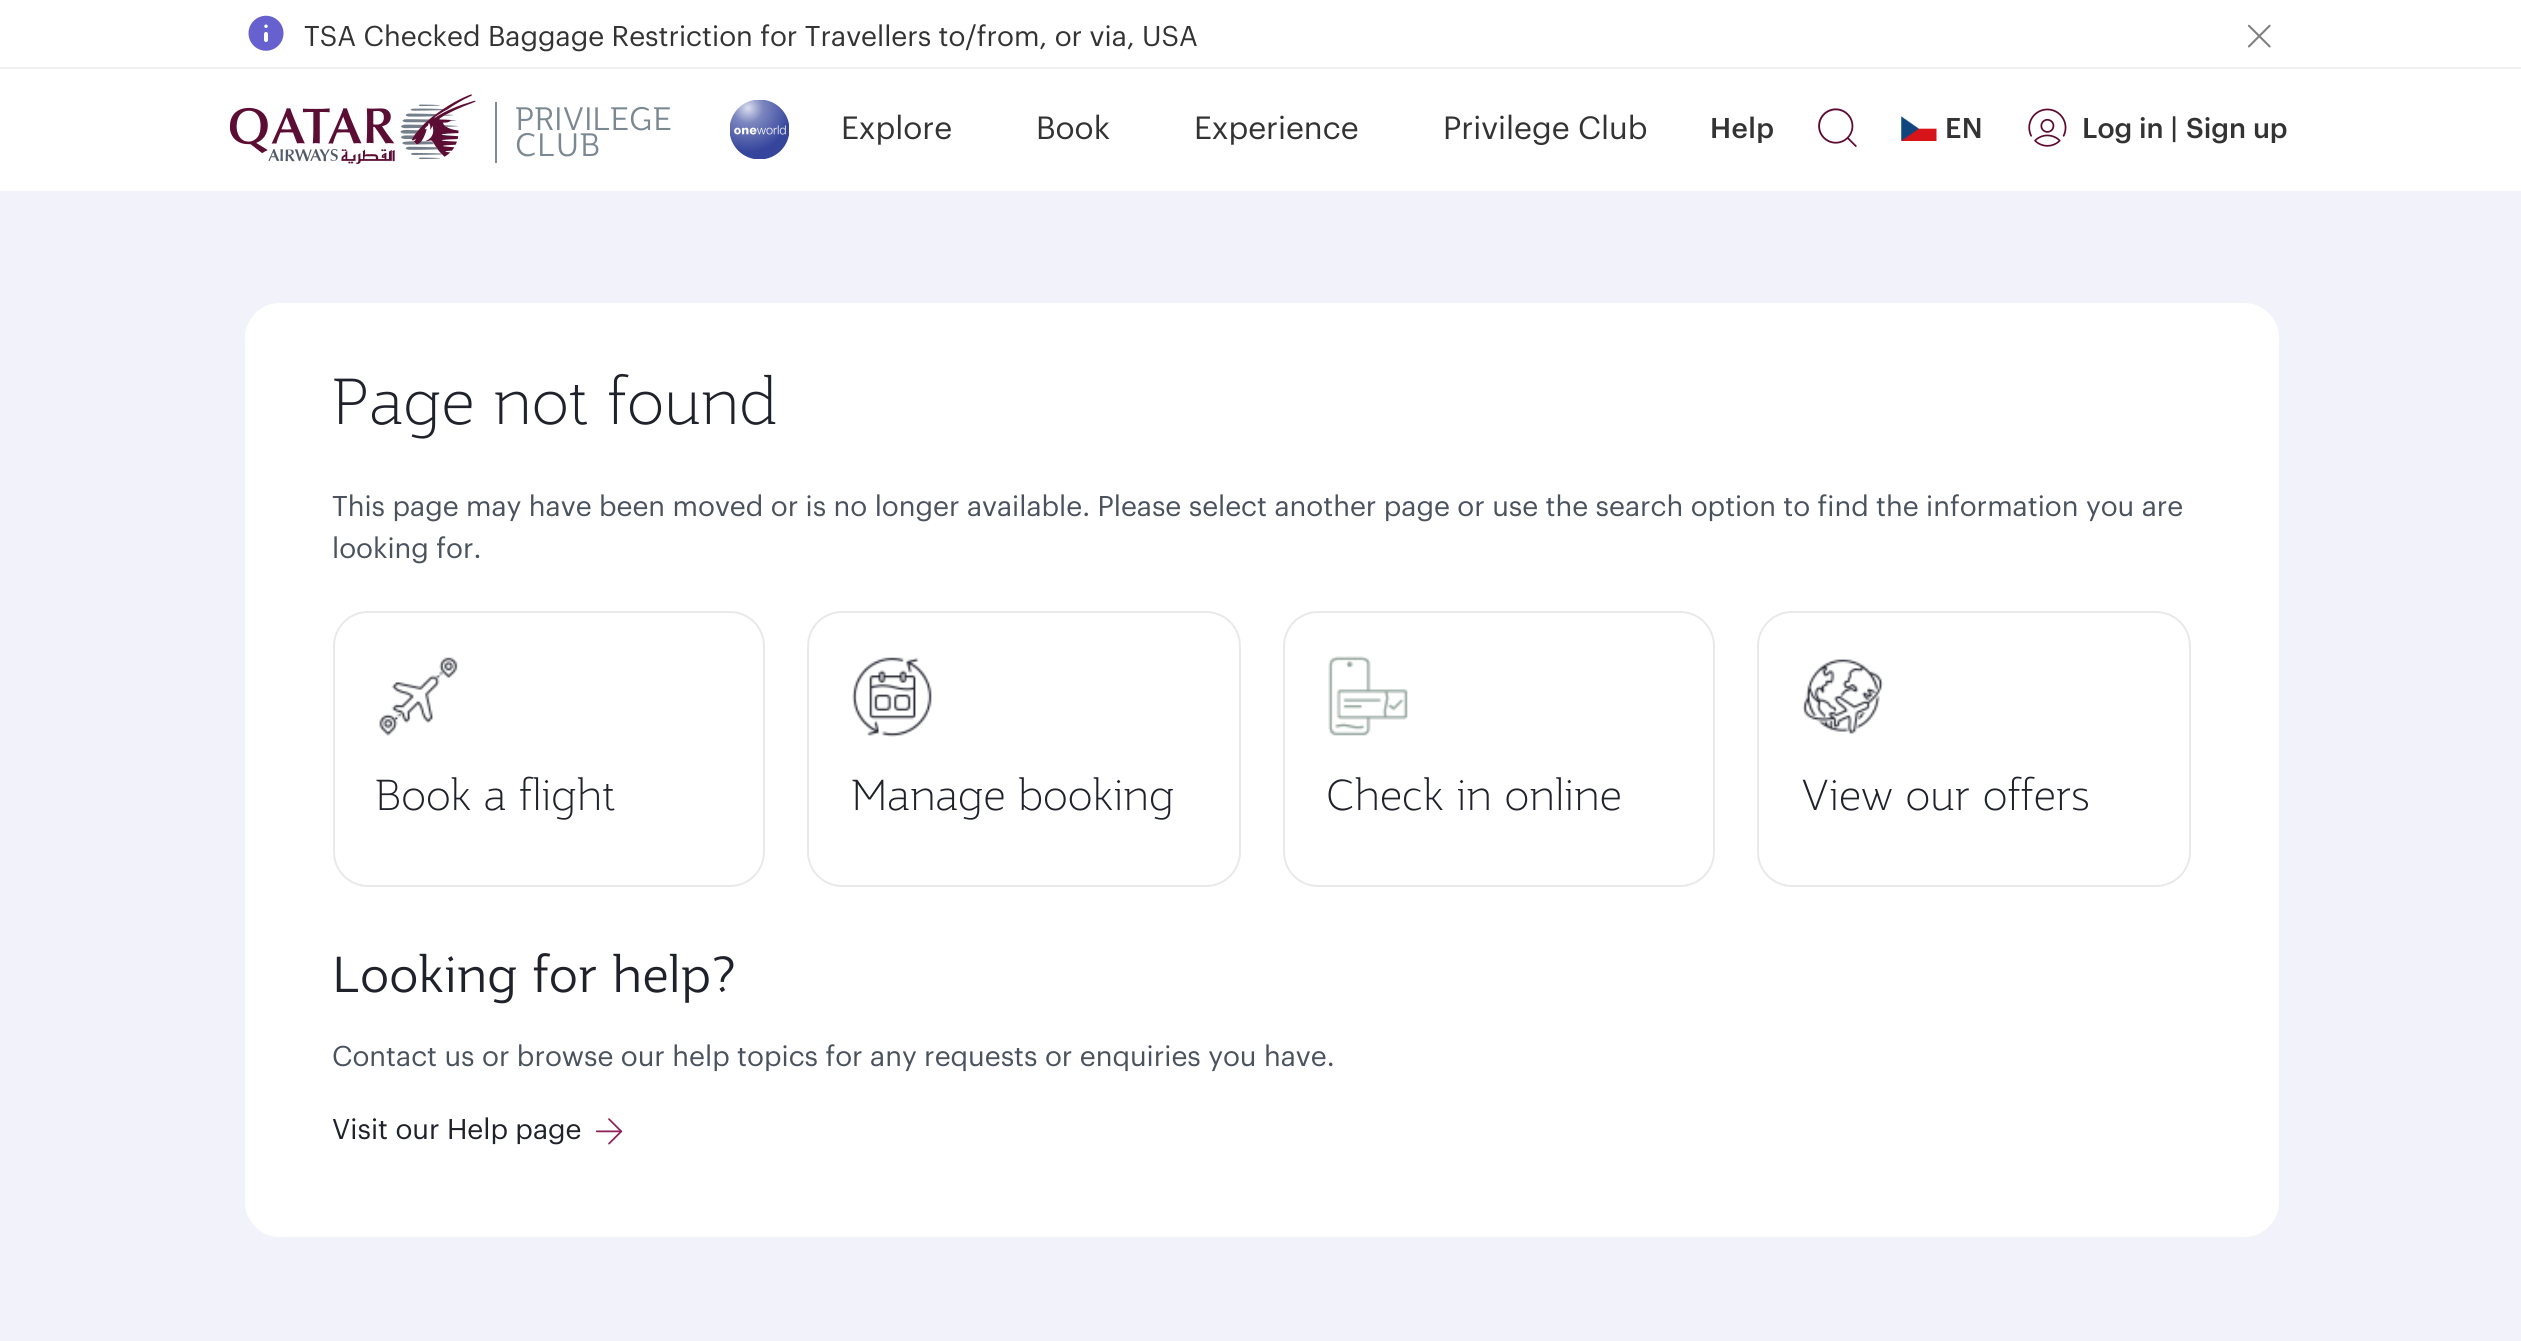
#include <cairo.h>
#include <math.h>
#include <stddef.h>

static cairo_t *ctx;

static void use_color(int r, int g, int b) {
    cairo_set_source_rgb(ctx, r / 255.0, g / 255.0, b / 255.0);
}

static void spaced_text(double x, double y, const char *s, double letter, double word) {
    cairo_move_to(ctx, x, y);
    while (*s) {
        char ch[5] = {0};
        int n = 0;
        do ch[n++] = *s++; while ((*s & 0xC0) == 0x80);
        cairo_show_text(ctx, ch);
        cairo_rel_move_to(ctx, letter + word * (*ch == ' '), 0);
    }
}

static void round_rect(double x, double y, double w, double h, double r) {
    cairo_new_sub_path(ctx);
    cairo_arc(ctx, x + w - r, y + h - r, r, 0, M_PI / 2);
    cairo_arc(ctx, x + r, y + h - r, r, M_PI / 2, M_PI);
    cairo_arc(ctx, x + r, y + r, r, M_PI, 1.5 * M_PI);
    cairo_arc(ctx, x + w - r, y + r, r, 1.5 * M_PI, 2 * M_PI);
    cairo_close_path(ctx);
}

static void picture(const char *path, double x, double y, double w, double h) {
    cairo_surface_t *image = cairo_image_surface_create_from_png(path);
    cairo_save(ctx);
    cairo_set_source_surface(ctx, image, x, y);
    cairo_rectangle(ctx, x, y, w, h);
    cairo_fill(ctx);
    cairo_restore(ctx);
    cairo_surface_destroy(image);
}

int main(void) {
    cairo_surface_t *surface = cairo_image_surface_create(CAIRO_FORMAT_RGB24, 2521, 1341);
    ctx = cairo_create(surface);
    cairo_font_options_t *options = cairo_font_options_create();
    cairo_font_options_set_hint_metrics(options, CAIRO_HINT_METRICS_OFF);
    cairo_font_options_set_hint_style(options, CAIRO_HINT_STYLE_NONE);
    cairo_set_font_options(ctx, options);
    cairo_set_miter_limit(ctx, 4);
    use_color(242, 243, 250);
    cairo_paint(ctx);
    use_color(255, 255, 255);
    cairo_rectangle(ctx, 0, 0, 2521, 191);
    cairo_fill(ctx);
    use_color(239, 240, 241);
    cairo_rectangle(ctx, 0, 67, 2521, 2);
    cairo_fill(ctx);
    picture("img1.png", 248, 15, 36, 36);
    cairo_select_font_face(ctx, "Graphik", CAIRO_FONT_SLANT_NORMAL, CAIRO_FONT_WEIGHT_NORMAL);
    cairo_set_font_size(ctx, 28);
    use_color(51, 51, 51);
    cairo_move_to(ctx, 304, 46);
    cairo_show_text(ctx, "TSA Checked Baggage Restriction for Travellers to/from, or via, USA");
    picture("img2.png", 2247, 24, 24, 24);
    picture("img3.png", 229, 94, 247, 70);
    use_color(128, 141, 151);
    cairo_rectangle(ctx, 495, 102, 2, 61);
    cairo_fill(ctx);
    cairo_select_font_face(ctx, "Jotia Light", CAIRO_FONT_SLANT_NORMAL, CAIRO_FONT_WEIGHT_NORMAL);
    cairo_set_font_size(ctx, 31.5);
    use_color(122, 136, 146);
    spaced_text(515, 130, "PRIVILEGE", -0.25, 0);
    spaced_text(515, 156, "CLUB", 0.5, 0);
    picture("img4.png", 730, 100, 59, 59);
    cairo_select_font_face(ctx, "Graphik", CAIRO_FONT_SLANT_NORMAL, CAIRO_FONT_WEIGHT_NORMAL);
    use_color(51, 51, 51);
    cairo_move_to(ctx, 841, 139);
    cairo_show_text(ctx, "Explore");
    cairo_move_to(ctx, 1036, 139);
    cairo_show_text(ctx, "Book");
    cairo_move_to(ctx, 1194, 139);
    cairo_show_text(ctx, "Experience");
    cairo_move_to(ctx, 1443, 139);
    cairo_show_text(ctx, "Privilege Club");
    cairo_select_font_face(ctx, "Graphik Medium", CAIRO_FONT_SLANT_NORMAL, CAIRO_FONT_WEIGHT_NORMAL);
    cairo_set_font_size(ctx, 28);
    spaced_text(1710, 138, "Help", 0.5, 0);
    picture("img5.png", 1818, 108, 39, 39);
    picture("img6.png", 1901, 116, 36, 25);
    spaced_text(1945, 138, "EN", 0.5, 0);
    picture("img7.png", 2028, 108, 39, 39);
    cairo_move_to(ctx, 2082, 138);
    cairo_show_text(ctx, "Log in |");
    cairo_move_to(ctx, 2186, 138);
    cairo_show_text(ctx, "Sign up");
    use_color(255, 255, 255);
    round_rect(245, 303, 2034, 934, 35);
    cairo_fill(ctx);
    cairo_select_font_face(ctx, "Jotia Thin", CAIRO_FONT_SLANT_NORMAL, CAIRO_FONT_WEIGHT_NORMAL);
    cairo_set_font_size(ctx, 63);
    use_color(31, 33, 43);
    cairo_move_to(ctx, 332, 424);
    cairo_show_text(ctx, "Page not found");
    cairo_select_font_face(ctx, "Graphik", CAIRO_FONT_SLANT_NORMAL, CAIRO_FONT_WEIGHT_NORMAL);
    cairo_set_font_size(ctx, 28);
    use_color(74, 82, 93);
    cairo_move_to(ctx, 332, 516);
    cairo_show_text(ctx, "This page may have been moved or is no longer available. Please select another page or use the search option to find the information you are");
    cairo_move_to(ctx, 332, 558);
    cairo_show_text(ctx, "looking for.");
    round_rect(334, 612, 430, 274, 34);
    use_color(233, 233, 234);
    cairo_stroke(ctx);
    picture("img8.png", 379, 657, 79, 79);
    cairo_select_font_face(ctx, "Jotia Thin", CAIRO_FONT_SLANT_NORMAL, CAIRO_FONT_WEIGHT_NORMAL);
    cairo_set_font_size(ctx, 42);
    use_color(31, 33, 43);
    cairo_move_to(ctx, 375, 810);
    cairo_show_text(ctx, "Book a flight");
    round_rect(808, 612, 432, 274, 34);
    use_color(233, 233, 234);
    cairo_stroke(ctx);
    picture("img9.png", 852, 657, 80, 80);
    use_color(31, 33, 43);
    cairo_move_to(ctx, 851, 810);
    cairo_show_text(ctx, "Manage booking");
    round_rect(1284, 612, 430, 274, 34);
    use_color(233, 233, 234);
    cairo_stroke(ctx);
    picture("img10.png", 1328, 656, 80, 80);
    use_color(31, 33, 43);
    cairo_move_to(ctx, 1326, 810);
    cairo_show_text(ctx, "Check in online");
    round_rect(1758, 612, 432, 274, 34);
    use_color(233, 233, 234);
    cairo_stroke(ctx);
    picture("img11.png", 1802, 659, 82, 75);
    use_color(31, 33, 43);
    cairo_move_to(ctx, 1801, 810);
    cairo_show_text(ctx, "View our offers");
    cairo_select_font_face(ctx, "Jotia Light", CAIRO_FONT_SLANT_NORMAL, CAIRO_FONT_WEIGHT_NORMAL);
    cairo_set_font_size(ctx, 49);
    cairo_move_to(ctx, 332, 992);
    cairo_show_text(ctx, "Looking for help?");
    cairo_select_font_face(ctx, "Graphik", CAIRO_FONT_SLANT_NORMAL, CAIRO_FONT_WEIGHT_NORMAL);
    cairo_set_font_size(ctx, 28);
    use_color(74, 82, 93);
    cairo_move_to(ctx, 332, 1066);
    cairo_show_text(ctx, "Contact us or browse our help topics for any requests or enquiries you have.");
    use_color(31, 33, 43);
    cairo_move_to(ctx, 332, 1139);
    cairo_show_text(ctx, "Visit our Help page");
    picture("img12.png", 595, 1118, 28, 27);
    cairo_surface_write_to_png(surface, "result.png");
    cairo_font_options_destroy(options);
    cairo_destroy(ctx);
    cairo_surface_destroy(surface);
    return 0;
}
